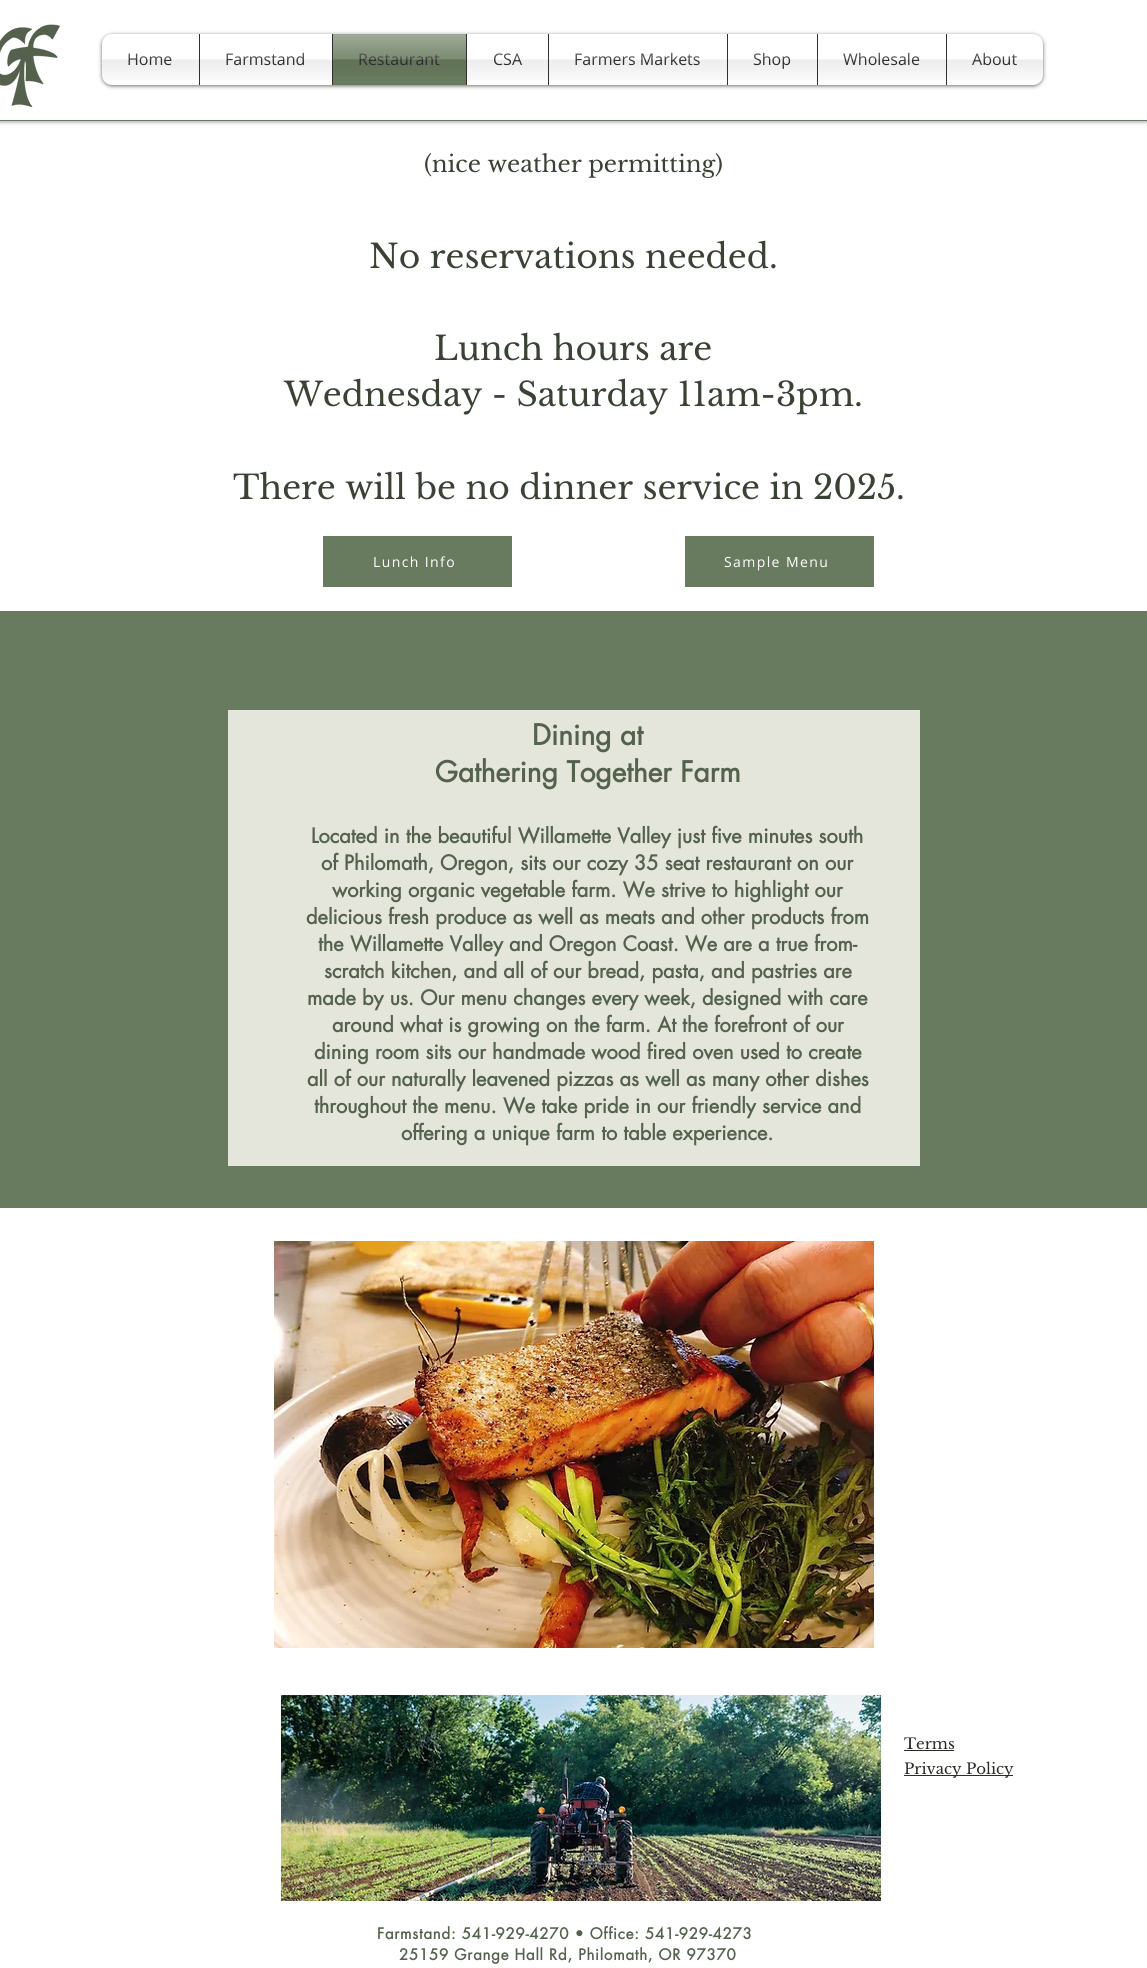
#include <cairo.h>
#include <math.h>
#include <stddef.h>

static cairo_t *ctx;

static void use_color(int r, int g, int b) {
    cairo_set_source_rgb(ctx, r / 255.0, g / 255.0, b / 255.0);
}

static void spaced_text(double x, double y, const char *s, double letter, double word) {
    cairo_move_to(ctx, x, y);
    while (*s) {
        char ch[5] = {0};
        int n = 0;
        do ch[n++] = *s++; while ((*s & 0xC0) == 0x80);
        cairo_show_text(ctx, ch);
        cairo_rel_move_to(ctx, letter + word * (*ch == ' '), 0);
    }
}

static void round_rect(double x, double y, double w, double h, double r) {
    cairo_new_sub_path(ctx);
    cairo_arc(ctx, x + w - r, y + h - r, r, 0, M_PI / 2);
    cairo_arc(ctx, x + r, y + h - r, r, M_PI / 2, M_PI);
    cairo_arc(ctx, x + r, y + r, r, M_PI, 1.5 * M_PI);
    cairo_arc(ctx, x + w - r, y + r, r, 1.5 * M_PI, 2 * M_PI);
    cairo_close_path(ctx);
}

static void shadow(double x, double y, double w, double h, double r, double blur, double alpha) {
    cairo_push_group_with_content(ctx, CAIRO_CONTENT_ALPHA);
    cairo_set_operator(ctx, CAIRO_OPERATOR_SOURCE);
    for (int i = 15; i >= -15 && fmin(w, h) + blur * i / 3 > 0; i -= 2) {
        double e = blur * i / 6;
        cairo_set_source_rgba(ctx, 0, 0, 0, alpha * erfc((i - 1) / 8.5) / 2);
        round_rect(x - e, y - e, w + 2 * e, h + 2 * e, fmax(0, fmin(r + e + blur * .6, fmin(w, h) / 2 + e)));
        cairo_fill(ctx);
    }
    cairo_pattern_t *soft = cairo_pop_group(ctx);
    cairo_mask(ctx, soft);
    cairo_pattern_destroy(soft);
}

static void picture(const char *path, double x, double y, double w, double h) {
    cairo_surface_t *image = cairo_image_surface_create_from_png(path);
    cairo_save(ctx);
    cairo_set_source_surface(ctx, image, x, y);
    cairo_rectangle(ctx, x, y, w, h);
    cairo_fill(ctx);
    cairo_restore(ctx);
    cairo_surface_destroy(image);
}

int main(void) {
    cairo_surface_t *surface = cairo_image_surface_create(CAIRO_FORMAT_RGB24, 1147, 1968);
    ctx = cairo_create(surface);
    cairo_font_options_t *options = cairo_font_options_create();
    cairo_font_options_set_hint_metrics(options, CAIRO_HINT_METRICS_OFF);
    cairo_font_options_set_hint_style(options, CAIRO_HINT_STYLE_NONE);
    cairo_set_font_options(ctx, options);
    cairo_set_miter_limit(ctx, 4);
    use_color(255, 255, 255);
    cairo_paint(ctx);
    cairo_save(ctx);
    cairo_rectangle(ctx, 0, 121, 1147, 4);
    cairo_clip(ctx);
    use_color(0, 0, 0);
    shadow(0, 0, 1147, 121, 0, 2.5, 0.5);
    cairo_restore(ctx);
    use_color(105, 123, 94);
    cairo_rectangle(ctx, 0, 120, 1147, 1);
    cairo_fill(ctx);
    picture("img1.png", 0, 24, 60, 84);
    use_color(0, 0, 0);
    shadow(102, 35, 941, 51, 10, 2, 0.6);
    picture("img2.png", 102, 75, 941, 1);
    use_color(255, 255, 255);
    cairo_new_path(ctx);
    cairo_move_to(ctx, 112, 34);
    cairo_line_to(ctx, 199, 34);
    cairo_line_to(ctx, 199, 85);
    cairo_line_to(ctx, 112, 85);
    cairo_curve_to(ctx, 106.5, 85, 102, 80.5, 102, 75);
    cairo_line_to(ctx, 102, 44);
    cairo_curve_to(ctx, 102, 38.5, 106.5, 34, 112, 34);
    cairo_close_path(ctx);
    cairo_fill(ctx);
    cairo_select_font_face(ctx, "Open Sans", CAIRO_FONT_SLANT_NORMAL, CAIRO_FONT_WEIGHT_NORMAL);
    cairo_set_font_size(ctx, 16);
    use_color(48, 48, 48);
    cairo_move_to(ctx, 127, 65);
    cairo_show_text(ctx, "Home");
    picture("img3.png", 102, 53, 97, 27);
    use_color(255, 255, 255);
    cairo_rectangle(ctx, 200, 34, 132, 51);
    cairo_fill(ctx);
    use_color(48, 48, 48);
    cairo_rectangle(ctx, 199, 34, 1, 51);
    cairo_fill(ctx);
    cairo_move_to(ctx, 225, 65);
    cairo_show_text(ctx, "Farmstand");
    picture("img4.png", 200, 52, 132, 28);
    use_color(105, 123, 94);
    cairo_rectangle(ctx, 333, 34, 133, 51);
    cairo_fill(ctx);
    use_color(48, 48, 48);
    cairo_rectangle(ctx, 332, 34, 1, 51);
    cairo_fill(ctx);
    cairo_move_to(ctx, 358, 65);
    cairo_show_text(ctx, "Restaurant");
    picture("img5.png", 333, 34, 133, 42);
    use_color(255, 255, 255);
    cairo_rectangle(ctx, 467, 34, 81, 51);
    cairo_fill(ctx);
    use_color(48, 48, 48);
    cairo_rectangle(ctx, 466, 34, 1, 51);
    cairo_fill(ctx);
    cairo_move_to(ctx, 493, 65);
    cairo_show_text(ctx, "CSA");
    picture("img6.png", 467, 53, 81, 27);
    use_color(255, 255, 255);
    cairo_rectangle(ctx, 549, 34, 178, 51);
    cairo_fill(ctx);
    use_color(48, 48, 48);
    cairo_rectangle(ctx, 548, 34, 1, 51);
    cairo_fill(ctx);
    cairo_move_to(ctx, 574, 65);
    cairo_show_text(ctx, "Farmers Markets");
    picture("img7.png", 549, 53, 178, 27);
    use_color(255, 255, 255);
    cairo_rectangle(ctx, 728, 34, 89, 51);
    cairo_fill(ctx);
    use_color(48, 48, 48);
    cairo_rectangle(ctx, 727, 34, 1, 51);
    cairo_fill(ctx);
    cairo_move_to(ctx, 753, 65);
    cairo_show_text(ctx, "Shop");
    picture("img8.png", 728, 52, 89, 28);
    use_color(255, 255, 255);
    cairo_rectangle(ctx, 818, 34, 128, 51);
    cairo_fill(ctx);
    use_color(48, 48, 48);
    cairo_rectangle(ctx, 817, 34, 1, 51);
    cairo_fill(ctx);
    cairo_move_to(ctx, 843, 65);
    cairo_show_text(ctx, "Wholesale");
    picture("img9.png", 818, 52, 128, 28);
    use_color(255, 255, 255);
    cairo_new_path(ctx);
    cairo_move_to(ctx, 946, 34);
    cairo_line_to(ctx, 1033, 34);
    cairo_curve_to(ctx, 1038.5, 34, 1043, 38.5, 1043, 44);
    cairo_line_to(ctx, 1043, 75);
    cairo_curve_to(ctx, 1043, 80.5, 1038.5, 85, 1033, 85);
    cairo_line_to(ctx, 946, 85);
    cairo_close_path(ctx);
    cairo_fill(ctx);
    use_color(48, 48, 48);
    cairo_rectangle(ctx, 946, 34, 1, 51);
    cairo_fill(ctx);
    cairo_move_to(ctx, 972, 65);
    cairo_show_text(ctx, "About");
    picture("img10.png", 947, 53, 96, 27);
    cairo_select_font_face(ctx, "Libre Baskerville", CAIRO_FONT_SLANT_NORMAL, CAIRO_FONT_WEIGHT_NORMAL);
    cairo_set_font_size(ctx, 23);
    use_color(57, 66, 52);
    cairo_move_to(ctx, 424, 172);
    cairo_show_text(ctx, "(nice weather permitting)");
    cairo_set_font_size(ctx, 33);
    cairo_move_to(ctx, 369, 268);
    cairo_show_text(ctx, "No reservations needed.");
    cairo_move_to(ctx, 434, 360);
    cairo_show_text(ctx, "Lunch hours are");
    cairo_move_to(ctx, 284, 406);
    cairo_show_text(ctx, "Wednesday - Saturday 11am-3pm.");
    cairo_move_to(ctx, 233, 499);
    cairo_show_text(ctx, "There will be no dinner service in 2025.");
    use_color(105, 123, 94);
    cairo_rectangle(ctx, 323, 536, 189, 51);
    cairo_fill(ctx);
    cairo_select_font_face(ctx, "Open Sans", CAIRO_FONT_SLANT_NORMAL, CAIRO_FONT_WEIGHT_NORMAL);
    cairo_set_font_size(ctx, 14);
    use_color(255, 255, 255);
    spaced_text(373, 567, "Lunch Info", 1.4, 0);
    use_color(105, 123, 94);
    cairo_rectangle(ctx, 685, 536, 189, 51);
    cairo_fill(ctx);
    use_color(255, 255, 255);
    spaced_text(724, 567, "Sample Menu", 1.4, 0);
    use_color(105, 123, 94);
    cairo_rectangle(ctx, 0, 611, 1147, 597);
    cairo_fill(ctx);
    use_color(229, 230, 219);
    cairo_rectangle(ctx, 228, 710, 692, 456);
    cairo_fill(ctx);
    cairo_select_font_face(ctx, "futura", CAIRO_FONT_SLANT_NORMAL, CAIRO_FONT_WEIGHT_BOLD);
    cairo_set_font_size(ctx, 28);
    use_color(83, 97, 77);
    cairo_move_to(ctx, 532, 745);
    cairo_show_text(ctx, "Dining at");
    cairo_move_to(ctx, 435, 782);
    cairo_show_text(ctx, "Gathering Together Farm");
    cairo_set_font_size(ctx, 20);
    cairo_move_to(ctx, 311, 843);
    cairo_show_text(ctx, "Located in the beautiful Willamette Valley just five minutes south");
    cairo_move_to(ctx, 321, 870);
    cairo_show_text(ctx, "of Philomath, Oregon, sits our cozy 35 seat restaurant on our");
    cairo_move_to(ctx, 332, 897);
    cairo_show_text(ctx, "working organic vegetable farm. We strive to highlight our");
    cairo_move_to(ctx, 306, 924);
    cairo_show_text(ctx, "delicious fresh produce as well as meats and other products from");
    cairo_move_to(ctx, 318, 951);
    cairo_show_text(ctx, "the Willamette Valley and Oregon Coast. We are a true from-");
    cairo_move_to(ctx, 324, 978);
    cairo_show_text(ctx, "scratch kitchen, and all of our bread, pasta, and pastries are");
    cairo_move_to(ctx, 307, 1005);
    cairo_show_text(ctx, "made by us. Our menu changes every week, designed with care");
    cairo_move_to(ctx, 332, 1032);
    cairo_show_text(ctx, "around what is growing on the farm. At the forefront of our");
    cairo_move_to(ctx, 314, 1059);
    cairo_show_text(ctx, "dining room sits our handmade wood fired oven used to create");
    cairo_move_to(ctx, 307, 1086);
    cairo_show_text(ctx, "all of our naturally leavened pizzas as well as many other dishes");
    cairo_move_to(ctx, 314, 1113);
    cairo_show_text(ctx, "throughout the menu. We take pride in our friendly service and");
    cairo_move_to(ctx, 401, 1140);
    cairo_show_text(ctx, "offering a unique farm to table experience.");
    picture("img11.png", 274, 1241, 600, 407);
    picture("img12.png", 281, 1695, 600, 206);
    cairo_select_font_face(ctx, "Libre Baskerville", CAIRO_FONT_SLANT_NORMAL, CAIRO_FONT_WEIGHT_NORMAL);
    cairo_set_font_size(ctx, 15);
    use_color(46, 43, 38);
    cairo_move_to(ctx, 904, 1749);
    cairo_show_text(ctx, "Terms");
    cairo_rectangle(ctx, 904, 1750, 50, 1);
    cairo_fill(ctx);
    cairo_rectangle(ctx, 904, 1775, 109, 1);
    cairo_fill(ctx);
    cairo_move_to(ctx, 904, 1774);
    cairo_show_text(ctx, "Privacy Policy");
    cairo_select_font_face(ctx, "futura", CAIRO_FONT_SLANT_NORMAL, CAIRO_FONT_WEIGHT_BOLD);
    use_color(83, 97, 77);
    spaced_text(377, 1939, "Farmstand: 541-929-4270 • Office: 541-929-4273", 0.75, 0);
    spaced_text(399, 1960, "25159 Grange Hall Rd, Philomath, OR 97370", 0.75, 0);
    cairo_surface_write_to_png(surface, "result.png");
    cairo_font_options_destroy(options);
    cairo_destroy(ctx);
    cairo_surface_destroy(surface);
    return 0;
}
